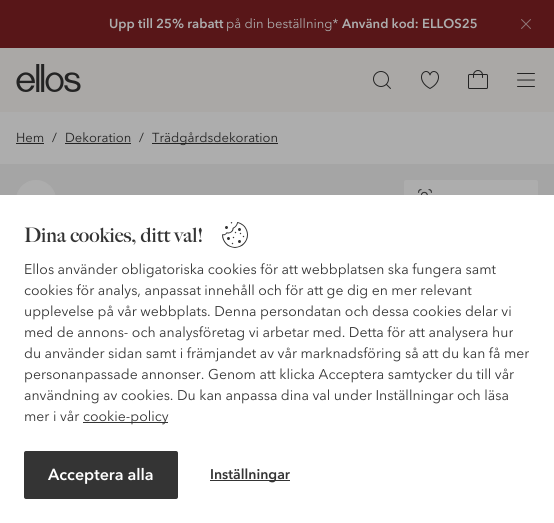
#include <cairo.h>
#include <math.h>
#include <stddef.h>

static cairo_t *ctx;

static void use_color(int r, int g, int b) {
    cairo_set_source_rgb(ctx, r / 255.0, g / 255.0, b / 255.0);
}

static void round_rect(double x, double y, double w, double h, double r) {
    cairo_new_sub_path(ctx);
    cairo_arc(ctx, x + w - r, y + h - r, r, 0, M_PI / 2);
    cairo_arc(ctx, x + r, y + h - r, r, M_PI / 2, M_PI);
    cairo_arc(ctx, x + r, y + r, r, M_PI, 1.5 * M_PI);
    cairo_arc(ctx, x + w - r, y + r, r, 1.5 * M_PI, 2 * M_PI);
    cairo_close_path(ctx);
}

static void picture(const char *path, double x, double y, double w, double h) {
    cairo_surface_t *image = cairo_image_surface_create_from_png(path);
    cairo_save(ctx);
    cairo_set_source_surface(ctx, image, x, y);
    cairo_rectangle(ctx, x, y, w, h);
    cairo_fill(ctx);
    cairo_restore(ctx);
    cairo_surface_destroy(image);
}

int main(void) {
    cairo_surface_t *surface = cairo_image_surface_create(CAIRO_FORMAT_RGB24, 554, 523);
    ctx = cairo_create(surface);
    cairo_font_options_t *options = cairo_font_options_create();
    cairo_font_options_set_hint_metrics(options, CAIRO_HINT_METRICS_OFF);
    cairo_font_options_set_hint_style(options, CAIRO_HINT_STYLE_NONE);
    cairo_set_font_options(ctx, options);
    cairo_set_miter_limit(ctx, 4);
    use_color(173, 173, 173);
    cairo_paint(ctx);
    use_color(88, 22, 24);
    cairo_rectangle(ctx, 0, 0, 554, 48);
    cairo_fill(ctx);
    cairo_select_font_face(ctx, "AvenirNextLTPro", CAIRO_FONT_SLANT_NORMAL, CAIRO_FONT_WEIGHT_BOLD);
    cairo_set_font_size(ctx, 13);
    use_color(173, 173, 173);
    cairo_move_to(ctx, 109, 28);
    cairo_show_text(ctx, "Upp till 25% rabatt");
    cairo_select_font_face(ctx, "AvenirNextLTPro", CAIRO_FONT_SLANT_NORMAL, CAIRO_FONT_WEIGHT_NORMAL);
    cairo_move_to(ctx, 226, 28);
    cairo_show_text(ctx, "på din beställning*");
    cairo_select_font_face(ctx, "AvenirNextLTPro", CAIRO_FONT_SLANT_NORMAL, CAIRO_FONT_WEIGHT_BOLD);
    cairo_move_to(ctx, 342, 28);
    cairo_show_text(ctx, "Använd kod: ELLOS25");
    picture("img1.png", 521, 19, 10, 10);
    use_color(170, 168, 166);
    cairo_rectangle(ctx, 0, 48, 554, 64);
    cairo_fill(ctx);
    picture("img2.png", 16, 64, 65, 28);
    picture("img3.png", 373, 71, 18, 18);
    picture("img4.png", 421, 71, 18, 18);
    picture("img5.png", 468, 70, 20, 19);
    picture("img6.png", 517, 73, 18, 14);
    cairo_select_font_face(ctx, "AvenirNextLTPro", CAIRO_FONT_SLANT_NORMAL, CAIRO_FONT_WEIGHT_NORMAL);
    use_color(35, 35, 35);
    cairo_move_to(ctx, 16, 142);
    cairo_show_text(ctx, "Hem");
    cairo_rectangle(ctx, 16, 143, 28, 1);
    cairo_fill(ctx);
    cairo_move_to(ctx, 52, 142);
    cairo_show_text(ctx, "/");
    cairo_move_to(ctx, 65, 142);
    cairo_show_text(ctx, "Dekoration");
    cairo_rectangle(ctx, 65, 143, 66, 1);
    cairo_fill(ctx);
    cairo_move_to(ctx, 139, 142);
    cairo_show_text(ctx, "/");
    cairo_rectangle(ctx, 152, 143, 126, 1);
    cairo_fill(ctx);
    cairo_move_to(ctx, 152, 142);
    cairo_show_text(ctx, "Trädgårdsdekoration");
    use_color(165, 165, 165);
    cairo_rectangle(ctx, 0, 164, 554, 31);
    cairo_fill(ctx);
    use_color(173, 173, 173);
    round_rect(404.5, 180.5, 133, 31, 1.5);
    cairo_fill_preserve(ctx);
    cairo_set_line_width(ctx, 1);
    cairo_stroke(ctx);
    picture("img7.png", 418, 189, 14, 6);
    cairo_arc(ctx, 36, 200, 19.5, 0, 2 * M_PI);
    cairo_fill_preserve(ctx);
    cairo_stroke(ctx);
    use_color(255, 255, 255);
    cairo_rectangle(ctx, 0, 195, 554, 328);
    cairo_fill(ctx);
    cairo_select_font_face(ctx, "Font", CAIRO_FONT_SLANT_NORMAL, CAIRO_FONT_WEIGHT_BOLD);
    cairo_set_font_size(ctx, 20);
    use_color(52, 52, 52);
    cairo_move_to(ctx, 24, 242);
    cairo_show_text(ctx, "Dina cookies, ditt val!");
    picture("img8.png", 222, 222, 26, 26);
    cairo_select_font_face(ctx, "AvenirNextLTPro", CAIRO_FONT_SLANT_NORMAL, CAIRO_FONT_WEIGHT_NORMAL);
    cairo_set_font_size(ctx, 14);
    cairo_move_to(ctx, 24, 274);
    cairo_show_text(ctx, "Ellos använder obligatoriska cookies för att webbplatsen ska fungera samt");
    cairo_move_to(ctx, 24, 295);
    cairo_show_text(ctx, "cookies för analys, anpassat innehåll och för att ge dig en mer relevant");
    cairo_move_to(ctx, 24, 316);
    cairo_show_text(ctx, "upplevelse på vår webbplats. Denna persondatan och dessa cookies delar vi");
    cairo_move_to(ctx, 24, 337);
    cairo_show_text(ctx, "med de annons- och analysföretag vi arbetar med. Detta för att analysera hur");
    cairo_move_to(ctx, 24, 358);
    cairo_show_text(ctx, "du använder sidan samt i främjandet av vår marknadsföring så att du kan få mer");
    cairo_move_to(ctx, 24, 379);
    cairo_show_text(ctx, "personanpassade annonser. Genom att klicka Acceptera samtycker du till vår");
    cairo_move_to(ctx, 24, 400);
    cairo_show_text(ctx, "användning av cookies. Du kan anpassa dina val under Inställningar och läsa");
    cairo_move_to(ctx, 24, 421);
    cairo_show_text(ctx, "mer i vår");
    cairo_rectangle(ctx, 83, 422, 85, 1);
    cairo_fill(ctx);
    cairo_move_to(ctx, 83, 421);
    cairo_show_text(ctx, "cookie-policy");
    round_rect(24, 451, 154, 48, 2);
    cairo_fill(ctx);
    cairo_select_font_face(ctx, "AvenirNextLTPro", CAIRO_FONT_SLANT_NORMAL, CAIRO_FONT_WEIGHT_BOLD);
    cairo_set_font_size(ctx, 16);
    use_color(255, 255, 255);
    cairo_move_to(ctx, 48, 480);
    cairo_show_text(ctx, "Acceptera alla");
    use_color(52, 52, 52);
    cairo_rectangle(ctx, 210, 480, 80, 1);
    cairo_fill(ctx);
    cairo_set_font_size(ctx, 14);
    cairo_move_to(ctx, 210, 479);
    cairo_show_text(ctx, "Inställningar");
    cairo_surface_write_to_png(surface, "result.png");
    cairo_font_options_destroy(options);
    cairo_destroy(ctx);
    cairo_surface_destroy(surface);
    return 0;
}
